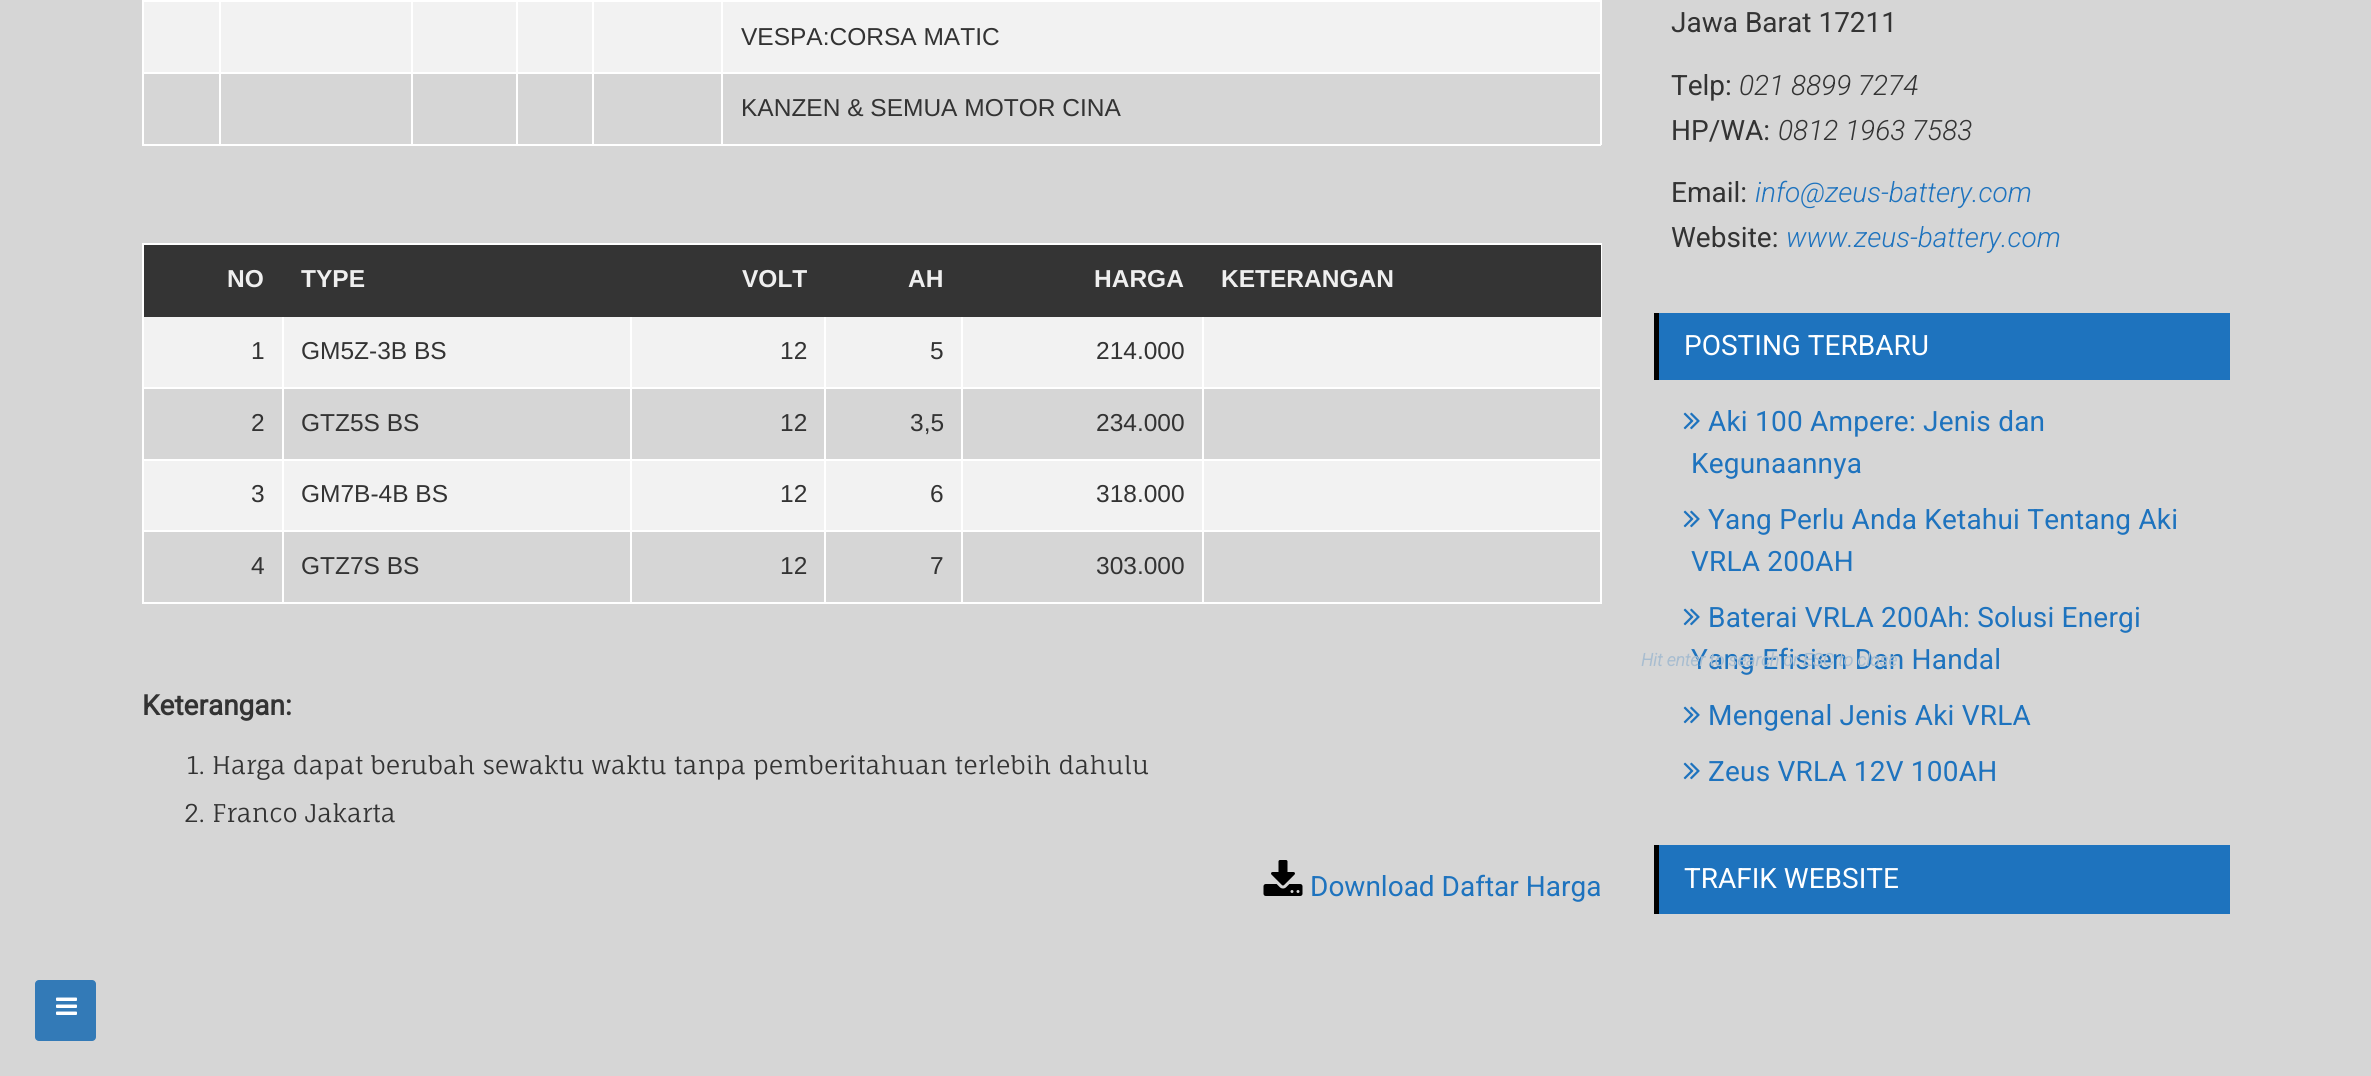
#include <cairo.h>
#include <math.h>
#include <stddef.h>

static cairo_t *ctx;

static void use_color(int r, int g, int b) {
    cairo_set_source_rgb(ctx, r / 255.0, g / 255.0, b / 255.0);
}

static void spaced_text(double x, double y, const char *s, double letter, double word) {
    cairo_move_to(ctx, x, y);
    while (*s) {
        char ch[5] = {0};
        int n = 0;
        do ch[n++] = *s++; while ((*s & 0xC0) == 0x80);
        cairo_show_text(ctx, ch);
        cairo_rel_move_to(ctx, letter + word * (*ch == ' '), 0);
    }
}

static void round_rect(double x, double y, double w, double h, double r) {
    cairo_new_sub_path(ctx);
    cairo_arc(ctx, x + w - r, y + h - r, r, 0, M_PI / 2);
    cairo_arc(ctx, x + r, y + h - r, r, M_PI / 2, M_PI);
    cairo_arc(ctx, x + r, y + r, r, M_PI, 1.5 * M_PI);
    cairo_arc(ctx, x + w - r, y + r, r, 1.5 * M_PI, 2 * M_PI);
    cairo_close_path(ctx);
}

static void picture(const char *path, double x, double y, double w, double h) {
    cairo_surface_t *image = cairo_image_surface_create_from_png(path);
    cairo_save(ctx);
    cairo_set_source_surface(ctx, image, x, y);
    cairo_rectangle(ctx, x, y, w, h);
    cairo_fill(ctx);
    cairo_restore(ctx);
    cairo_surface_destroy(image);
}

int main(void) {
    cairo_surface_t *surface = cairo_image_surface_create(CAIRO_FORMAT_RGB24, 2371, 1076);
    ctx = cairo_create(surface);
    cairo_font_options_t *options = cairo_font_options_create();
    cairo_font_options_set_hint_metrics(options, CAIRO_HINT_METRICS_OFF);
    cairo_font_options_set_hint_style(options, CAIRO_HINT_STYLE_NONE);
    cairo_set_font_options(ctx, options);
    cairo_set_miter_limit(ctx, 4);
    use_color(214, 214, 214);
    cairo_paint(ctx);
    use_color(242, 242, 242);
    cairo_rectangle(ctx, 144, 2, 1456, 70);
    cairo_fill(ctx);
    use_color(255, 255, 255);
    cairo_rectangle(ctx, 721, 0, 880, 2);
    cairo_fill(ctx);
    cairo_rectangle(ctx, 721, 72, 880, 2);
    cairo_fill(ctx);
    cairo_rectangle(ctx, 1600, 72, 2, 73);
    cairo_fill(ctx);
    cairo_rectangle(ctx, 721, 144, 880, 2);
    cairo_fill(ctx);
    cairo_rectangle(ctx, 721, 72, 2, 73);
    cairo_fill(ctx);
    cairo_rectangle(ctx, 592, 72, 131, 2);
    cairo_fill(ctx);
    cairo_rectangle(ctx, 721, 0, 2, 74);
    cairo_fill(ctx);
    cairo_rectangle(ctx, 592, 0, 131, 2);
    cairo_fill(ctx);
    cairo_rectangle(ctx, 592, 144, 131, 2);
    cairo_fill(ctx);
    cairo_rectangle(ctx, 592, 72, 2, 73);
    cairo_fill(ctx);
    cairo_rectangle(ctx, 516, 72, 77, 2);
    cairo_fill(ctx);
    cairo_rectangle(ctx, 592, 0, 2, 74);
    cairo_fill(ctx);
    cairo_rectangle(ctx, 516, 0, 77, 2);
    cairo_fill(ctx);
    cairo_rectangle(ctx, 516, 144, 77, 2);
    cairo_fill(ctx);
    cairo_rectangle(ctx, 516, 72, 2, 73);
    cairo_fill(ctx);
    cairo_rectangle(ctx, 411, 72, 107, 2);
    cairo_fill(ctx);
    cairo_rectangle(ctx, 516, 0, 2, 74);
    cairo_fill(ctx);
    cairo_rectangle(ctx, 411, 0, 107, 2);
    cairo_fill(ctx);
    cairo_rectangle(ctx, 411, 144, 107, 2);
    cairo_fill(ctx);
    cairo_rectangle(ctx, 411, 72, 2, 73);
    cairo_fill(ctx);
    cairo_rectangle(ctx, 219, 72, 194, 2);
    cairo_fill(ctx);
    cairo_rectangle(ctx, 411, 0, 2, 74);
    cairo_fill(ctx);
    cairo_rectangle(ctx, 219, 0, 194, 2);
    cairo_fill(ctx);
    cairo_rectangle(ctx, 219, 144, 194, 2);
    cairo_fill(ctx);
    cairo_rectangle(ctx, 219, 72, 2, 73);
    cairo_fill(ctx);
    cairo_rectangle(ctx, 142, 72, 79, 2);
    cairo_fill(ctx);
    cairo_rectangle(ctx, 219, 0, 2, 74);
    cairo_fill(ctx);
    cairo_rectangle(ctx, 142, 0, 79, 2);
    cairo_fill(ctx);
    cairo_rectangle(ctx, 142, 144, 79, 2);
    cairo_fill(ctx);
    cairo_rectangle(ctx, 142, 72, 2, 73);
    cairo_fill(ctx);
    cairo_rectangle(ctx, 142, 0, 2, 74);
    cairo_fill(ctx);
    cairo_rectangle(ctx, 1600, 0, 2, 74);
    cairo_fill(ctx);
    cairo_select_font_face(ctx, "Liberation Sans", CAIRO_FONT_SLANT_NORMAL, CAIRO_FONT_WEIGHT_NORMAL);
    cairo_set_font_size(ctx, 24.5);
    use_color(51, 51, 51);
    cairo_move_to(ctx, 741, 45);
    cairo_show_text(ctx, "VESPA:CORSA MATIC");
    cairo_move_to(ctx, 741, 116);
    cairo_show_text(ctx, "KANZEN & SEMUA MOTOR CINA");
    use_color(255, 255, 255);
    cairo_rectangle(ctx, 142, 243, 1459, 2);
    cairo_fill(ctx);
    cairo_rectangle(ctx, 1202, 387, 399, 2);
    cairo_fill(ctx);
    cairo_rectangle(ctx, 1202, 459, 399, 2);
    cairo_fill(ctx);
    use_color(242, 242, 242);
    cairo_rectangle(ctx, 144, 461, 1456, 69);
    cairo_fill(ctx);
    use_color(255, 255, 255);
    cairo_rectangle(ctx, 1202, 530, 399, 2);
    cairo_fill(ctx);
    cairo_rectangle(ctx, 1600, 530, 2, 74);
    cairo_fill(ctx);
    cairo_rectangle(ctx, 1202, 602, 399, 2);
    cairo_fill(ctx);
    cairo_rectangle(ctx, 1202, 530, 2, 74);
    cairo_fill(ctx);
    cairo_rectangle(ctx, 961, 530, 243, 2);
    cairo_fill(ctx);
    cairo_rectangle(ctx, 1202, 459, 2, 73);
    cairo_fill(ctx);
    cairo_rectangle(ctx, 961, 459, 243, 2);
    cairo_fill(ctx);
    cairo_rectangle(ctx, 1202, 387, 2, 73);
    cairo_fill(ctx);
    cairo_rectangle(ctx, 961, 387, 243, 2);
    cairo_fill(ctx);
    cairo_rectangle(ctx, 961, 602, 243, 2);
    cairo_fill(ctx);
    cairo_rectangle(ctx, 961, 530, 2, 74);
    cairo_fill(ctx);
    cairo_rectangle(ctx, 824, 530, 139, 2);
    cairo_fill(ctx);
    cairo_rectangle(ctx, 961, 459, 2, 73);
    cairo_fill(ctx);
    cairo_rectangle(ctx, 824, 459, 139, 2);
    cairo_fill(ctx);
    cairo_rectangle(ctx, 961, 387, 2, 73);
    cairo_fill(ctx);
    cairo_rectangle(ctx, 824, 387, 139, 2);
    cairo_fill(ctx);
    cairo_rectangle(ctx, 824, 602, 139, 2);
    cairo_fill(ctx);
    cairo_rectangle(ctx, 824, 530, 2, 74);
    cairo_fill(ctx);
    cairo_rectangle(ctx, 630, 530, 196, 2);
    cairo_fill(ctx);
    cairo_rectangle(ctx, 824, 459, 2, 73);
    cairo_fill(ctx);
    cairo_rectangle(ctx, 630, 459, 196, 2);
    cairo_fill(ctx);
    cairo_rectangle(ctx, 824, 387, 2, 73);
    cairo_fill(ctx);
    cairo_rectangle(ctx, 630, 387, 196, 2);
    cairo_fill(ctx);
    cairo_rectangle(ctx, 630, 602, 196, 2);
    cairo_fill(ctx);
    cairo_rectangle(ctx, 630, 530, 2, 74);
    cairo_fill(ctx);
    cairo_rectangle(ctx, 282, 530, 350, 2);
    cairo_fill(ctx);
    cairo_rectangle(ctx, 630, 459, 2, 73);
    cairo_fill(ctx);
    cairo_rectangle(ctx, 282, 459, 350, 2);
    cairo_fill(ctx);
    cairo_rectangle(ctx, 630, 387, 2, 73);
    cairo_fill(ctx);
    cairo_rectangle(ctx, 282, 387, 350, 2);
    cairo_fill(ctx);
    cairo_rectangle(ctx, 282, 602, 350, 2);
    cairo_fill(ctx);
    cairo_rectangle(ctx, 282, 530, 2, 74);
    cairo_fill(ctx);
    cairo_rectangle(ctx, 142, 530, 142, 2);
    cairo_fill(ctx);
    cairo_rectangle(ctx, 282, 459, 2, 73);
    cairo_fill(ctx);
    cairo_rectangle(ctx, 142, 459, 142, 2);
    cairo_fill(ctx);
    cairo_rectangle(ctx, 282, 387, 2, 73);
    cairo_fill(ctx);
    cairo_rectangle(ctx, 142, 387, 142, 2);
    cairo_fill(ctx);
    cairo_rectangle(ctx, 142, 602, 142, 2);
    cairo_fill(ctx);
    cairo_rectangle(ctx, 142, 530, 2, 74);
    cairo_fill(ctx);
    cairo_rectangle(ctx, 142, 459, 2, 73);
    cairo_fill(ctx);
    cairo_rectangle(ctx, 142, 315, 2, 145);
    cairo_fill(ctx);
    cairo_rectangle(ctx, 142, 243, 2, 74);
    cairo_fill(ctx);
    cairo_rectangle(ctx, 1600, 459, 2, 73);
    cairo_fill(ctx);
    cairo_rectangle(ctx, 1600, 315, 2, 145);
    cairo_fill(ctx);
    cairo_rectangle(ctx, 1600, 243, 2, 74);
    cairo_fill(ctx);
    use_color(242, 242, 242);
    cairo_rectangle(ctx, 144, 317, 1456, 70);
    cairo_fill(ctx);
    use_color(255, 255, 255);
    cairo_rectangle(ctx, 282, 315, 2, 74);
    cairo_fill(ctx);
    cairo_rectangle(ctx, 630, 315, 2, 74);
    cairo_fill(ctx);
    cairo_rectangle(ctx, 824, 315, 2, 74);
    cairo_fill(ctx);
    cairo_rectangle(ctx, 961, 315, 2, 74);
    cairo_fill(ctx);
    cairo_rectangle(ctx, 1202, 315, 2, 74);
    cairo_fill(ctx);
    use_color(52, 52, 52);
    cairo_rectangle(ctx, 144, 245, 1457, 72);
    cairo_fill(ctx);
    cairo_select_font_face(ctx, "Liberation Sans", CAIRO_FONT_SLANT_NORMAL, CAIRO_FONT_WEIGHT_BOLD);
    use_color(239, 239, 239);
    cairo_move_to(ctx, 227, 287);
    cairo_show_text(ctx, "NO");
    cairo_move_to(ctx, 301, 287);
    cairo_show_text(ctx, "TYPE");
    cairo_move_to(ctx, 742, 287);
    cairo_show_text(ctx, "VOLT");
    cairo_move_to(ctx, 908, 287);
    cairo_show_text(ctx, "AH");
    cairo_move_to(ctx, 1094, 287);
    cairo_show_text(ctx, "HARGA");
    cairo_move_to(ctx, 1221, 287);
    cairo_show_text(ctx, "KETERANGAN");
    cairo_select_font_face(ctx, "Liberation Sans", CAIRO_FONT_SLANT_NORMAL, CAIRO_FONT_WEIGHT_NORMAL);
    use_color(51, 51, 51);
    cairo_move_to(ctx, 251, 359);
    cairo_show_text(ctx, "1");
    cairo_move_to(ctx, 301, 359);
    cairo_show_text(ctx, "GM5Z-3B BS");
    cairo_move_to(ctx, 780, 359);
    cairo_show_text(ctx, "12");
    cairo_move_to(ctx, 930, 359);
    cairo_show_text(ctx, "5");
    cairo_move_to(ctx, 1096, 359);
    cairo_show_text(ctx, "214.000");
    cairo_move_to(ctx, 251, 431);
    cairo_show_text(ctx, "2");
    cairo_move_to(ctx, 301, 431);
    cairo_show_text(ctx, "GTZ5S BS");
    cairo_move_to(ctx, 780, 431);
    cairo_show_text(ctx, "12");
    cairo_move_to(ctx, 910, 431);
    cairo_show_text(ctx, "3,5");
    cairo_move_to(ctx, 1096, 431);
    cairo_show_text(ctx, "234.000");
    cairo_move_to(ctx, 251, 502);
    cairo_show_text(ctx, "3");
    cairo_move_to(ctx, 301, 502);
    cairo_show_text(ctx, "GM7B-4B BS");
    cairo_move_to(ctx, 780, 502);
    cairo_show_text(ctx, "12");
    cairo_move_to(ctx, 930, 502);
    cairo_show_text(ctx, "6");
    cairo_move_to(ctx, 1096, 502);
    cairo_show_text(ctx, "318.000");
    cairo_move_to(ctx, 251, 574);
    cairo_show_text(ctx, "4");
    cairo_move_to(ctx, 301, 574);
    cairo_show_text(ctx, "GTZ7S BS");
    cairo_move_to(ctx, 780, 574);
    cairo_show_text(ctx, "12");
    cairo_move_to(ctx, 930, 574);
    cairo_show_text(ctx, "7");
    cairo_move_to(ctx, 1096, 574);
    cairo_show_text(ctx, "303.000");
    cairo_select_font_face(ctx, "Roboto", CAIRO_FONT_SLANT_NORMAL, CAIRO_FONT_WEIGHT_BOLD);
    cairo_set_font_size(ctx, 28);
    cairo_move_to(ctx, 142, 715);
    cairo_show_text(ctx, "Keterangan:");
    cairo_select_font_face(ctx, "Fauna One", CAIRO_FONT_SLANT_NORMAL, CAIRO_FONT_WEIGHT_NORMAL);
    cairo_set_font_size(ctx, 24.5);
    cairo_move_to(ctx, 187, 774);
    cairo_show_text(ctx, "1. Harga dapat berubah sewaktu waktu tanpa pemberitahuan terlebih dahulu");
    cairo_move_to(ctx, 184, 822);
    cairo_show_text(ctx, "2. Franco Jakarta");
    picture("img1.png", 1263, 860, 40, 36);
    cairo_select_font_face(ctx, "Roboto", CAIRO_FONT_SLANT_NORMAL, CAIRO_FONT_WEIGHT_NORMAL);
    cairo_set_font_size(ctx, 28);
    use_color(30, 115, 190);
    cairo_move_to(ctx, 1310, 896);
    cairo_show_text(ctx, "Download Daftar Harga");
    use_color(51, 51, 51);
    cairo_move_to(ctx, 1671, 32);
    cairo_show_text(ctx, "Jawa Barat 17211");
    cairo_move_to(ctx, 1671, 95);
    cairo_show_text(ctx, "Telp:");
    cairo_select_font_face(ctx, "Roboto Light", CAIRO_FONT_SLANT_ITALIC, CAIRO_FONT_WEIGHT_NORMAL);
    cairo_move_to(ctx, 1739, 95);
    cairo_show_text(ctx, "021 8899 7274");
    cairo_select_font_face(ctx, "Roboto", CAIRO_FONT_SLANT_NORMAL, CAIRO_FONT_WEIGHT_NORMAL);
    cairo_move_to(ctx, 1671, 140);
    cairo_show_text(ctx, "HP/WA:");
    cairo_select_font_face(ctx, "Roboto Light", CAIRO_FONT_SLANT_ITALIC, CAIRO_FONT_WEIGHT_NORMAL);
    cairo_move_to(ctx, 1778, 140);
    cairo_show_text(ctx, "0812 1963 7583");
    cairo_select_font_face(ctx, "Roboto", CAIRO_FONT_SLANT_NORMAL, CAIRO_FONT_WEIGHT_NORMAL);
    cairo_move_to(ctx, 1671, 202);
    cairo_show_text(ctx, "Email:");
    cairo_select_font_face(ctx, "Roboto Light", CAIRO_FONT_SLANT_ITALIC, CAIRO_FONT_WEIGHT_NORMAL);
    use_color(30, 115, 190);
    cairo_move_to(ctx, 1755, 202);
    cairo_show_text(ctx, "info@zeus-battery.com");
    cairo_select_font_face(ctx, "Roboto", CAIRO_FONT_SLANT_NORMAL, CAIRO_FONT_WEIGHT_NORMAL);
    use_color(51, 51, 51);
    cairo_move_to(ctx, 1671, 247);
    cairo_show_text(ctx, "Website:");
    cairo_select_font_face(ctx, "Roboto Light", CAIRO_FONT_SLANT_ITALIC, CAIRO_FONT_WEIGHT_NORMAL);
    use_color(30, 115, 190);
    cairo_move_to(ctx, 1786, 247);
    cairo_show_text(ctx, "www.zeus-battery.com");
    cairo_rectangle(ctx, 1659, 313, 571, 67);
    cairo_fill(ctx);
    use_color(0, 0, 0);
    cairo_rectangle(ctx, 1654, 313, 5, 67);
    cairo_fill(ctx);
    cairo_select_font_face(ctx, "Roboto", CAIRO_FONT_SLANT_NORMAL, CAIRO_FONT_WEIGHT_NORMAL);
    use_color(255, 255, 255);
    cairo_move_to(ctx, 1684, 355);
    cairo_show_text(ctx, "POSTING TERBARU");
    picture("img2.png", 1683, 412, 17, 18);
    use_color(30, 115, 190);
    spaced_text(1708, 431, "Aki 100 Ampere: Jenis dan", 0.2, 0);
    spaced_text(1691, 473, "Kegunaannya", 0.2, 0);
    picture("img2.png", 1683, 510, 17, 18);
    spaced_text(1708, 529, "Yang Perlu Anda Ketahui Tentang Aki", 0.2, 0);
    spaced_text(1691, 571, "VRLA 200AH", 0.2, 0);
    picture("img2.png", 1683, 608, 17, 18);
    spaced_text(1708, 627, "Baterai VRLA 200Ah: Solusi Energi", 0.2, 0);
    spaced_text(1691, 669, "Yang Efisien Dan Handal", 0.2, 0);
    picture("img2.png", 1683, 706, 17, 18);
    spaced_text(1708, 725, "Mengenal Jenis Aki VRLA", 0.2, 0);
    picture("img2.png", 1683, 762, 17, 18);
    spaced_text(1708, 781, "Zeus VRLA 12V 100AH", 0.2, 0);
    cairo_rectangle(ctx, 1659, 845, 571, 69);
    cairo_fill(ctx);
    use_color(0, 0, 0);
    cairo_rectangle(ctx, 1654, 845, 5, 69);
    cairo_fill(ctx);
    use_color(255, 255, 255);
    cairo_move_to(ctx, 1684, 888);
    cairo_show_text(ctx, "TRAFIK WEBSITE");
    cairo_select_font_face(ctx, "Roboto", CAIRO_FONT_SLANT_ITALIC, CAIRO_FONT_WEIGHT_BOLD);
    cairo_set_font_size(ctx, 17.6);
    use_color(168, 189, 208);
    cairo_move_to(ctx, 1641, 666);
    cairo_show_text(ctx, "Hit enter to search or ESC to close");
    use_color(51, 122, 183);
    round_rect(35, 980, 61, 61, 4);
    cairo_fill(ctx);
    picture("img3.png", 56, 997, 21, 18);
    cairo_surface_write_to_png(surface, "result.png");
    cairo_font_options_destroy(options);
    cairo_destroy(ctx);
    cairo_surface_destroy(surface);
    return 0;
}
